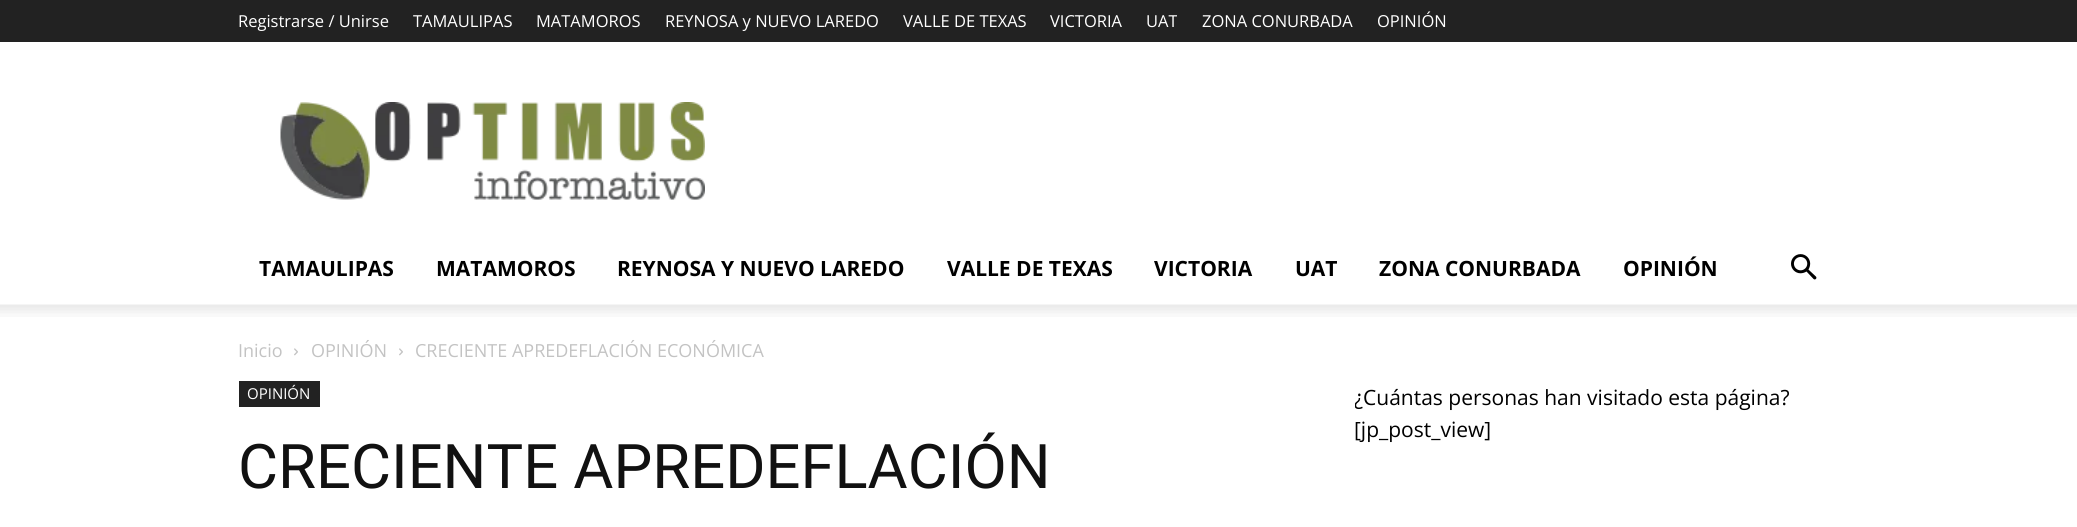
#include <cairo.h>
#include <math.h>
#include <stddef.h>

static cairo_t *ctx;

static void use_color(int r, int g, int b) {
    cairo_set_source_rgb(ctx, r / 255.0, g / 255.0, b / 255.0);
}

static void picture(const char *path, double x, double y, double w, double h) {
    cairo_surface_t *image = cairo_image_surface_create_from_png(path);
    cairo_save(ctx);
    cairo_set_source_surface(ctx, image, x, y);
    cairo_rectangle(ctx, x, y, w, h);
    cairo_fill(ctx);
    cairo_restore(ctx);
    cairo_surface_destroy(image);
}

int main(void) {
    cairo_surface_t *surface = cairo_image_surface_create(CAIRO_FORMAT_RGB24, 2077, 527);
    ctx = cairo_create(surface);
    cairo_font_options_t *options = cairo_font_options_create();
    cairo_font_options_set_hint_metrics(options, CAIRO_HINT_METRICS_OFF);
    cairo_font_options_set_hint_style(options, CAIRO_HINT_STYLE_NONE);
    cairo_set_font_options(ctx, options);
    cairo_set_miter_limit(ctx, 4);
    use_color(255, 255, 255);
    cairo_paint(ctx);
    use_color(34, 34, 34);
    cairo_rectangle(ctx, 0, 0, 2077, 42);
    cairo_fill(ctx);
    cairo_select_font_face(ctx, "Open Sans", CAIRO_FONT_SLANT_NORMAL, CAIRO_FONT_WEIGHT_NORMAL);
    cairo_set_font_size(ctx, 16.5);
    use_color(255, 255, 255);
    cairo_move_to(ctx, 238, 27);
    cairo_show_text(ctx, "Registrarse / Unirse");
    cairo_move_to(ctx, 413, 27);
    cairo_show_text(ctx, "TAMAULIPAS");
    cairo_move_to(ctx, 536, 27);
    cairo_show_text(ctx, "MATAMOROS");
    cairo_move_to(ctx, 665, 27);
    cairo_show_text(ctx, "REYNOSA y NUEVO LAREDO");
    cairo_move_to(ctx, 903, 27);
    cairo_show_text(ctx, "VALLE DE TEXAS");
    cairo_move_to(ctx, 1050, 27);
    cairo_show_text(ctx, "VICTORIA");
    cairo_move_to(ctx, 1146, 27);
    cairo_show_text(ctx, "UAT");
    cairo_move_to(ctx, 1202, 27);
    cairo_show_text(ctx, "ZONA CONURBADA");
    cairo_move_to(ctx, 1377, 27);
    cairo_show_text(ctx, "OPINIÓN");
    picture("img1.png", 280, 102, 425, 98);
    cairo_select_font_face(ctx, "Open Sans", CAIRO_FONT_SLANT_NORMAL, CAIRO_FONT_WEIGHT_BOLD);
    cairo_set_font_size(ctx, 21);
    use_color(0, 0, 0);
    cairo_move_to(ctx, 259, 276);
    cairo_show_text(ctx, "TAMAULIPAS");
    cairo_move_to(ctx, 436, 276);
    cairo_show_text(ctx, "MATAMOROS");
    cairo_move_to(ctx, 617, 276);
    cairo_show_text(ctx, "REYNOSA Y NUEVO LAREDO");
    cairo_move_to(ctx, 947, 276);
    cairo_show_text(ctx, "VALLE DE TEXAS");
    cairo_move_to(ctx, 1154, 276);
    cairo_show_text(ctx, "VICTORIA");
    cairo_move_to(ctx, 1295, 276);
    cairo_show_text(ctx, "UAT");
    cairo_move_to(ctx, 1379, 276);
    cairo_show_text(ctx, "ZONA CONURBADA");
    cairo_move_to(ctx, 1623, 276);
    cairo_show_text(ctx, "OPINIÓN");
    picture("img2.png", 1791, 254, 26, 26);
    picture("img3.png", 0, 304, 2077, 13);
    cairo_select_font_face(ctx, "Open Sans", CAIRO_FONT_SLANT_NORMAL, CAIRO_FONT_WEIGHT_NORMAL);
    cairo_set_font_size(ctx, 18);
    use_color(195, 195, 195);
    cairo_move_to(ctx, 238, 357);
    cairo_show_text(ctx, "Inicio");
    picture("img4.png", 294, 348, 4, 8);
    cairo_move_to(ctx, 311, 357);
    cairo_show_text(ctx, "OPINIÓN");
    picture("img4.png", 399, 348, 4, 8);
    cairo_move_to(ctx, 415, 357);
    cairo_show_text(ctx, "CRECIENTE APREDEFLACIÓN ECONÓMICA");
    use_color(34, 34, 34);
    cairo_rectangle(ctx, 239, 381, 81, 26);
    cairo_fill(ctx);
    cairo_set_font_size(ctx, 15);
    use_color(255, 255, 255);
    cairo_move_to(ctx, 247, 399);
    cairo_show_text(ctx, "OPINIÓN");
    cairo_select_font_face(ctx, "Roboto", CAIRO_FONT_SLANT_NORMAL, CAIRO_FONT_WEIGHT_NORMAL);
    cairo_set_font_size(ctx, 61.5);
    use_color(17, 17, 17);
    cairo_move_to(ctx, 238, 488);
    cairo_show_text(ctx, "CRECIENTE APREDEFLACIÓN");
    cairo_save(ctx);
    cairo_rectangle(ctx, 1355, 381, 486, 95);
    cairo_clip(ctx);
    cairo_select_font_face(ctx, "Open Sans", CAIRO_FONT_SLANT_NORMAL, CAIRO_FONT_WEIGHT_NORMAL);
    cairo_set_font_size(ctx, 21);
    use_color(0, 0, 0);
    cairo_move_to(ctx, 1354, 405);
    cairo_show_text(ctx, "¿Cuántas personas han visitado esta página?");
    cairo_restore(ctx);
    cairo_select_font_face(ctx, "Open Sans", CAIRO_FONT_SLANT_NORMAL, CAIRO_FONT_WEIGHT_NORMAL);
    cairo_set_font_size(ctx, 21);
    use_color(0, 0, 0);
    cairo_move_to(ctx, 1354, 437);
    cairo_show_text(ctx, "[jp_post_view]");
    cairo_surface_write_to_png(surface, "result.png");
    cairo_font_options_destroy(options);
    cairo_destroy(ctx);
    cairo_surface_destroy(surface);
    return 0;
}
